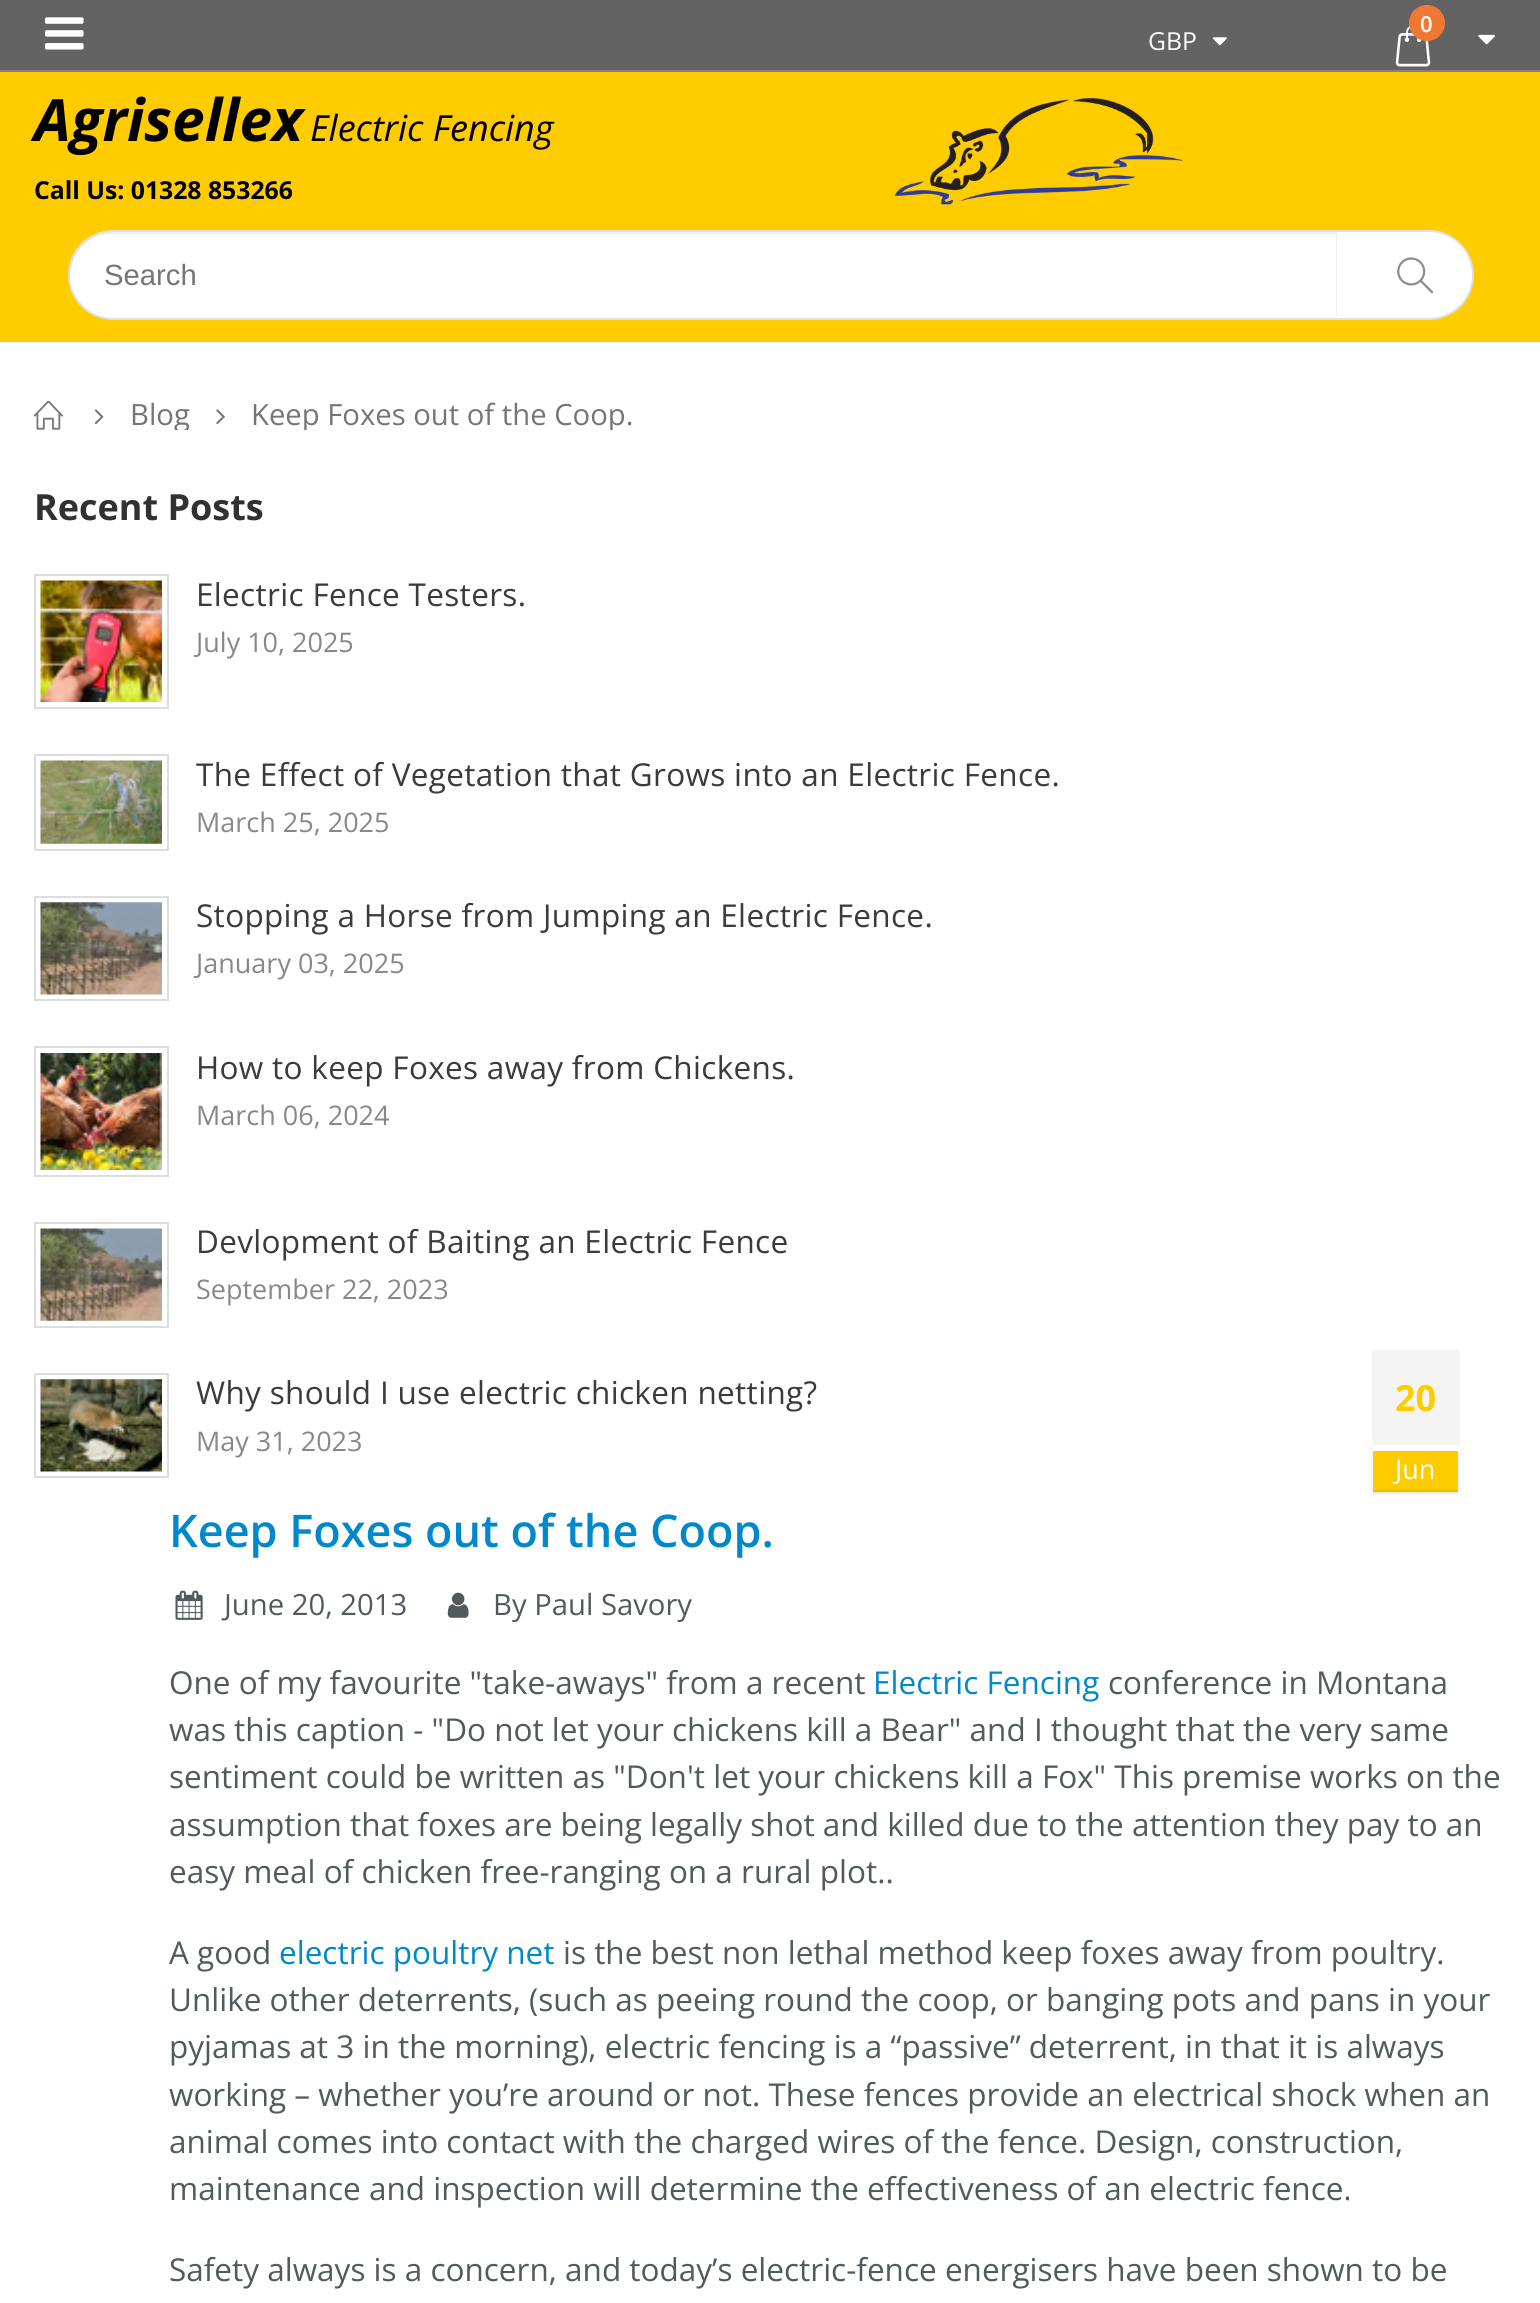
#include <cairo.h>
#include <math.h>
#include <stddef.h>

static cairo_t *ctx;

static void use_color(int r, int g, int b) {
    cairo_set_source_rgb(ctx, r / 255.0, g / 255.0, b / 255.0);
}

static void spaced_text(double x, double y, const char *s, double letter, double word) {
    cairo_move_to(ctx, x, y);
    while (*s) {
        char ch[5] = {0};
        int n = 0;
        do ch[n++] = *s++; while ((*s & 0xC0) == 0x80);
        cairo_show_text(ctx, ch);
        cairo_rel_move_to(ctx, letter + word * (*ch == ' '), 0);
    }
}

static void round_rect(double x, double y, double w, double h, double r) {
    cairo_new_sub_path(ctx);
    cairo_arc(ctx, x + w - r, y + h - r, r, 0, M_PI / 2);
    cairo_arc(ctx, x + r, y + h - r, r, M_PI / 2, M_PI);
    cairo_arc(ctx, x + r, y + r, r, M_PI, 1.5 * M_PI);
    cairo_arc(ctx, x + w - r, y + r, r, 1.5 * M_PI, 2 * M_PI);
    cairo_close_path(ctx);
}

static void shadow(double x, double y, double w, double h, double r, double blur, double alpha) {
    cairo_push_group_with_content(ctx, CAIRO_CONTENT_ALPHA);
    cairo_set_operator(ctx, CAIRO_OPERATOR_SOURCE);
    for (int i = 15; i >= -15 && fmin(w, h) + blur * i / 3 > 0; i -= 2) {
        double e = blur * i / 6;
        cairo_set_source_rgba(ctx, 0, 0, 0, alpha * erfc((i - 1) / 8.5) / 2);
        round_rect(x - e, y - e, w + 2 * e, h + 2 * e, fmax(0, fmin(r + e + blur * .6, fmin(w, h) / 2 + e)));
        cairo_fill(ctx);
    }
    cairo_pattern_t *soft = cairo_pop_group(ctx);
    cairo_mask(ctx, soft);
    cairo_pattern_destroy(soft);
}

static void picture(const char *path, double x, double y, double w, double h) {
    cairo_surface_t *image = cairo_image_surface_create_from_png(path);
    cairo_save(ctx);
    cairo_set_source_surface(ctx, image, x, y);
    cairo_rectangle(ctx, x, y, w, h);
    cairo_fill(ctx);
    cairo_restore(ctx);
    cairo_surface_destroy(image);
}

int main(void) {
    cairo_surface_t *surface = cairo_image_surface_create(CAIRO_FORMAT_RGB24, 1540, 2303);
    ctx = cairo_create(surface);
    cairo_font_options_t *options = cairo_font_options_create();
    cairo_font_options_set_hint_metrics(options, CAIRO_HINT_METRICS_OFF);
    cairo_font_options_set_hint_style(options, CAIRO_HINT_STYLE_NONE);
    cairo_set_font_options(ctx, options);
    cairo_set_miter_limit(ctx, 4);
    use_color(255, 255, 255);
    cairo_paint(ctx);
    use_color(255, 204, 0);
    cairo_rectangle(ctx, 0, 72, 1540, 270);
    cairo_fill(ctx);
    use_color(99, 99, 99);
    cairo_rectangle(ctx, 0, 0, 1540, 70);
    cairo_fill(ctx);
    use_color(129, 129, 129);
    cairo_rectangle(ctx, 0, 70, 1540, 2);
    cairo_fill(ctx);
    picture("img1.png", 45, 17, 39, 33);
    cairo_select_font_face(ctx, "Open Sans", CAIRO_FONT_SLANT_NORMAL, CAIRO_FONT_WEIGHT_NORMAL);
    cairo_set_font_size(ctx, 24.75);
    use_color(255, 255, 255);
    cairo_move_to(ctx, 1148, 50);
    cairo_show_text(ctx, "GBP");
    picture("img2.png", 1212, 37, 15, 9);
    picture("img3.png", 1395, 26, 36, 41);
    use_color(241, 119, 52);
    cairo_arc(ctx, 1427, 23, 18, 0, 2 * M_PI);
    cairo_fill(ctx);
    cairo_select_font_face(ctx, "Open Sans SemiBold", CAIRO_FONT_SLANT_NORMAL, CAIRO_FONT_WEIGHT_NORMAL);
    cairo_set_font_size(ctx, 22);
    use_color(255, 255, 255);
    cairo_move_to(ctx, 1420, 32);
    cairo_show_text(ctx, "0");
    picture("img4.png", 1478, 34, 17, 11);
    cairo_select_font_face(ctx, "Open Sans", CAIRO_FONT_SLANT_ITALIC, CAIRO_FONT_WEIGHT_BOLD);
    cairo_set_font_size(ctx, 58.5);
    use_color(0, 0, 0);
    cairo_move_to(ctx, 34, 141);
    cairo_show_text(ctx, "Agrisellex");
    cairo_select_font_face(ctx, "Open Sans", CAIRO_FONT_SLANT_ITALIC, CAIRO_FONT_WEIGHT_NORMAL);
    cairo_set_font_size(ctx, 36);
    cairo_move_to(ctx, 310, 141);
    cairo_show_text(ctx, "Electric Fencing");
    cairo_select_font_face(ctx, "Open Sans", CAIRO_FONT_SLANT_NORMAL, CAIRO_FONT_WEIGHT_BOLD);
    cairo_set_font_size(ctx, 24.75);
    cairo_move_to(ctx, 34, 199);
    cairo_show_text(ctx, "Call Us: 01328 853266");
    picture("img5.png", 894, 97, 289, 108);
    use_color(255, 255, 255);
    round_rect(69, 231, 1404, 88, 44);
    cairo_fill_preserve(ctx);
    use_color(219, 224, 226);
    cairo_stroke(ctx);
    cairo_set_source_rgba(ctx, 0, 0, 0, 0.07);
    cairo_new_path(ctx);
    cairo_move_to(ctx, 112, 234);
    cairo_line_to(ctx, 1336, 234);
    cairo_line_to(ctx, 1336, 317);
    cairo_line_to(ctx, 1337, 317);
    cairo_line_to(ctx, 1337, 232);
    cairo_line_to(ctx, 112, 232);
    cairo_curve_to(ctx, 89, 232, 69, 252, 70, 276);
    cairo_curve_to(ctx, 71, 252, 89, 234, 112, 234);
    cairo_close_path(ctx);
    cairo_fill(ctx);
    cairo_select_font_face(ctx, "Liberation Sans", CAIRO_FONT_SLANT_NORMAL, CAIRO_FONT_WEIGHT_NORMAL);
    cairo_set_font_size(ctx, 29.25);
    use_color(117, 117, 117);
    cairo_move_to(ctx, 104, 285);
    cairo_show_text(ctx, "Search");
    picture("img6.png", 1397, 257, 37, 37);
    picture("img7.png", 34, 401, 29, 29);
    picture("img8.png", 94, 409, 10, 16);
    cairo_save(ctx);
    cairo_rectangle(ctx, 34, 398, 1474, 32);
    cairo_clip(ctx);
    cairo_select_font_face(ctx, "Open Sans", CAIRO_FONT_SLANT_NORMAL, CAIRO_FONT_WEIGHT_NORMAL);
    cairo_move_to(ctx, 130, 425);
    cairo_show_text(ctx, "Blog");
    cairo_restore(ctx);
    picture("img9.png", 216, 409, 9, 16);
    cairo_save(ctx);
    cairo_rectangle(ctx, 34, 398, 1474, 32);
    cairo_clip(ctx);
    cairo_select_font_face(ctx, "Open Sans", CAIRO_FONT_SLANT_NORMAL, CAIRO_FONT_WEIGHT_NORMAL);
    cairo_move_to(ctx, 251, 425);
    cairo_show_text(ctx, "Keep Foxes out of the Coop.");
    cairo_restore(ctx);
    cairo_select_font_face(ctx, "Open Sans", CAIRO_FONT_SLANT_NORMAL, CAIRO_FONT_WEIGHT_BOLD);
    cairo_set_font_size(ctx, 36);
    use_color(49, 49, 49);
    cairo_move_to(ctx, 34, 520);
    cairo_show_text(ctx, "Recent Posts");
    cairo_rectangle(ctx, 35, 575, 133, 133);
    use_color(221, 221, 221);
    cairo_stroke(ctx);
    picture("img10.png", 40, 580, 122, 122);
    cairo_select_font_face(ctx, "Open Sans", CAIRO_FONT_SLANT_NORMAL, CAIRO_FONT_WEIGHT_NORMAL);
    cairo_set_font_size(ctx, 31.5);
    use_color(59, 59, 59);
    spaced_text(196, 606, "Electric Fence Testers.", 0.32, 0);
    cairo_set_font_size(ctx, 27);
    use_color(136, 136, 136);
    cairo_move_to(ctx, 196, 652);
    cairo_show_text(ctx, "July 10, 2025");
    cairo_rectangle(ctx, 35, 755, 133, 95);
    use_color(221, 221, 221);
    cairo_stroke(ctx);
    picture("img11.png", 40, 760, 122, 84);
    cairo_set_font_size(ctx, 31.5);
    use_color(59, 59, 59);
    spaced_text(196, 786, "The Effect of Vegetation that Grows into an Electric Fence.", 0.32, 0);
    cairo_set_font_size(ctx, 27);
    use_color(136, 136, 136);
    cairo_move_to(ctx, 196, 832);
    cairo_show_text(ctx, "March 25, 2025");
    cairo_rectangle(ctx, 35, 897, 133, 103);
    use_color(221, 221, 221);
    cairo_stroke(ctx);
    picture("img12.png", 40, 902, 122, 93);
    cairo_set_font_size(ctx, 31.5);
    use_color(59, 59, 59);
    spaced_text(196, 927, "Stopping a Horse from Jumping an Electric Fence.", 0.32, 0);
    cairo_set_font_size(ctx, 27);
    use_color(136, 136, 136);
    cairo_move_to(ctx, 196, 973);
    cairo_show_text(ctx, "January 03, 2025");
    cairo_rectangle(ctx, 35, 1047, 133, 129);
    use_color(221, 221, 221);
    cairo_stroke(ctx);
    picture("img13.png", 40, 1053, 122, 117);
    cairo_set_font_size(ctx, 31.5);
    use_color(59, 59, 59);
    spaced_text(196, 1079, "How to keep Foxes away from Chickens.", 0.32, 0);
    cairo_set_font_size(ctx, 27);
    use_color(136, 136, 136);
    cairo_move_to(ctx, 196, 1125);
    cairo_show_text(ctx, "March 06, 2024");
    cairo_rectangle(ctx, 35, 1223, 133, 104);
    use_color(221, 221, 221);
    cairo_stroke(ctx);
    picture("img14.png", 40, 1228, 122, 93);
    cairo_set_font_size(ctx, 31.5);
    use_color(59, 59, 59);
    spaced_text(196, 1253, "Devlopment of Baiting an Electric Fence", 0.32, 0);
    cairo_set_font_size(ctx, 27);
    use_color(136, 136, 136);
    cairo_move_to(ctx, 196, 1299);
    cairo_show_text(ctx, "September 22, 2023");
    cairo_rectangle(ctx, 35, 1374, 133, 103);
    use_color(221, 221, 221);
    cairo_stroke(ctx);
    picture("img15.png", 40, 1379, 122, 93);
    cairo_set_font_size(ctx, 31.5);
    use_color(59, 59, 59);
    spaced_text(196, 1404, "Why should I use electric chicken netting?", 0.32, 0);
    cairo_set_font_size(ctx, 27);
    use_color(136, 136, 136);
    cairo_move_to(ctx, 196, 1451);
    cairo_show_text(ctx, "May 31, 2023");
    cairo_save(ctx);
    cairo_set_fill_rule(ctx, CAIRO_FILL_RULE_EVEN_ODD);
    cairo_new_path(ctx);
    cairo_move_to(ctx, 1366, 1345);
    cairo_line_to(ctx, 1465, 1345);
    cairo_line_to(ctx, 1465, 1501);
    cairo_line_to(ctx, 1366, 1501);
    cairo_close_path(ctx);
    cairo_move_to(ctx, 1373, 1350);
    cairo_line_to(ctx, 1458, 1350);
    cairo_line_to(ctx, 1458, 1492);
    cairo_line_to(ctx, 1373, 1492);
    cairo_close_path(ctx);
    cairo_clip(ctx);
    use_color(0, 0, 0);
    shadow(1373, 1352, 85, 142, 0, 2, 0.1);
    cairo_restore(ctx);
    use_color(244, 244, 244);
    cairo_rectangle(ctx, 1373, 1350, 85, 95);
    cairo_fill(ctx);
    cairo_select_font_face(ctx, "Open Sans", CAIRO_FONT_SLANT_NORMAL, CAIRO_FONT_WEIGHT_BOLD);
    cairo_set_font_size(ctx, 36);
    use_color(255, 204, 0);
    cairo_move_to(ctx, 1395, 1411);
    cairo_show_text(ctx, "20");
    cairo_rectangle(ctx, 1373, 1451, 85, 39);
    cairo_fill(ctx);
    use_color(237, 190, 0);
    cairo_rectangle(ctx, 1373, 1490, 85, 2);
    cairo_fill(ctx);
    cairo_select_font_face(ctx, "Open Sans", CAIRO_FONT_SLANT_NORMAL, CAIRO_FONT_WEIGHT_NORMAL);
    cairo_set_font_size(ctx, 27);
    use_color(255, 255, 255);
    cairo_move_to(ctx, 1395, 1479);
    cairo_show_text(ctx, "Jun");
    cairo_select_font_face(ctx, "Open Sans SemiBold", CAIRO_FONT_SLANT_NORMAL, CAIRO_FONT_WEIGHT_NORMAL);
    cairo_set_font_size(ctx, 45);
    use_color(0, 136, 204);
    cairo_move_to(ctx, 169, 1547);
    cairo_show_text(ctx, "Keep Foxes out of the Coop.");
    picture("img16.png", 175, 1590, 28, 30);
    cairo_select_font_face(ctx, "Open Sans", CAIRO_FONT_SLANT_NORMAL, CAIRO_FONT_WEIGHT_NORMAL);
    cairo_set_font_size(ctx, 29.25);
    use_color(83, 90, 94);
    cairo_move_to(ctx, 224, 1615);
    cairo_show_text(ctx, "June 20, 2013");
    picture("img17.png", 447, 1592, 22, 26);
    cairo_move_to(ctx, 493, 1615);
    cairo_show_text(ctx, "By Paul Savory");
    cairo_set_font_size(ctx, 31.5);
    cairo_move_to(ctx, 169, 1694);
    cairo_show_text(ctx, "One of my favourite \"take-aways\" from a recent");
    use_color(0, 136, 204);
    cairo_move_to(ctx, 873, 1694);
    cairo_show_text(ctx, "Electric Fencing");
    use_color(83, 90, 94);
    cairo_move_to(ctx, 1108, 1694);
    cairo_show_text(ctx, "conference in Montana");
    cairo_move_to(ctx, 169, 1741);
    cairo_show_text(ctx, "was this caption - \"Do not let your chickens kill a Bear\" and I thought that the very same");
    cairo_move_to(ctx, 169, 1788);
    cairo_show_text(ctx, "sentiment could be written as \"Don't let your chickens kill a Fox\" This premise works on the");
    cairo_move_to(ctx, 169, 1836);
    cairo_show_text(ctx, "assumption that foxes are being legally shot and killed due to the attention they pay to an");
    cairo_move_to(ctx, 169, 1883);
    cairo_show_text(ctx, "easy meal of chicken free-ranging on a rural plot..");
    cairo_move_to(ctx, 169, 1964);
    cairo_show_text(ctx, "A good");
    use_color(0, 136, 204);
    cairo_move_to(ctx, 279, 1964);
    cairo_show_text(ctx, "electric poultry net");
    use_color(83, 90, 94);
    cairo_move_to(ctx, 563, 1964);
    cairo_show_text(ctx, "is the best non lethal method keep foxes away from poultry.");
    cairo_move_to(ctx, 169, 2011);
    cairo_show_text(ctx, "Unlike other deterrents, (such as peeing round the coop, or banging pots and pans in your");
    cairo_move_to(ctx, 169, 2058);
    cairo_show_text(ctx, "pyjamas at 3 in the morning), electric fencing is a “passive” deterrent, in that it is always");
    cairo_move_to(ctx, 169, 2106);
    cairo_show_text(ctx, "working – whether you’re around or not. These fences provide an electrical shock when an");
    cairo_move_to(ctx, 169, 2153);
    cairo_show_text(ctx, "animal comes into contact with the charged wires of the fence. Design, construction,");
    cairo_move_to(ctx, 169, 2200);
    cairo_show_text(ctx, "maintenance and inspection will determine the effectiveness of an electric fence.");
    cairo_move_to(ctx, 169, 2281);
    cairo_show_text(ctx, "Safety always is a concern, and today’s electric-fence energisers have been shown to be");
    cairo_surface_write_to_png(surface, "result.png");
    cairo_font_options_destroy(options);
    cairo_destroy(ctx);
    cairo_surface_destroy(surface);
    return 0;
}
